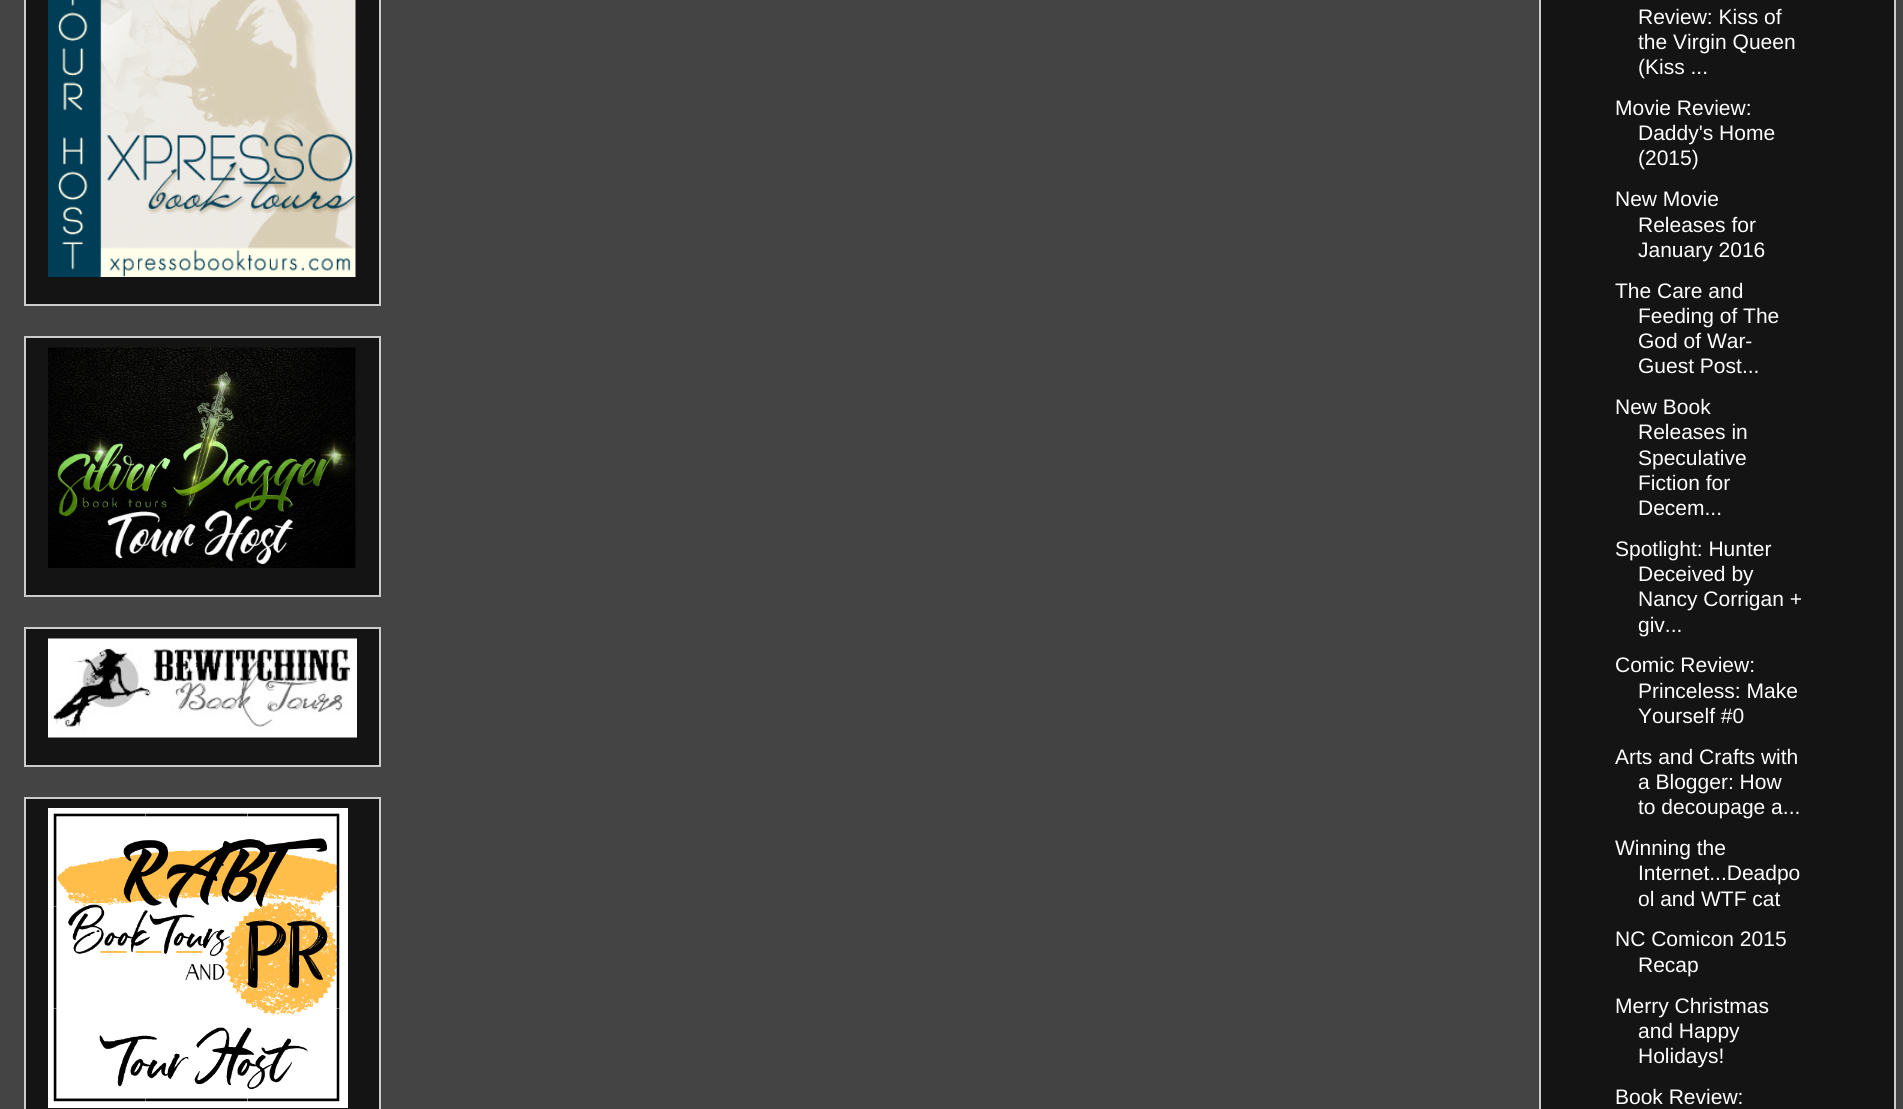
#include <cairo.h>
#include <math.h>
#include <stddef.h>

static cairo_t *ctx;

static void use_color(int r, int g, int b) {
    cairo_set_source_rgb(ctx, r / 255.0, g / 255.0, b / 255.0);
}

static void picture(const char *path, double x, double y, double w, double h) {
    cairo_surface_t *image = cairo_image_surface_create_from_png(path);
    cairo_save(ctx);
    cairo_set_source_surface(ctx, image, x, y);
    cairo_rectangle(ctx, x, y, w, h);
    cairo_fill(ctx);
    cairo_restore(ctx);
    cairo_surface_destroy(image);
}

int main(void) {
    cairo_surface_t *surface = cairo_image_surface_create(CAIRO_FORMAT_RGB24, 1903, 1109);
    ctx = cairo_create(surface);
    cairo_font_options_t *options = cairo_font_options_create();
    cairo_font_options_set_hint_metrics(options, CAIRO_HINT_METRICS_OFF);
    cairo_font_options_set_hint_style(options, CAIRO_HINT_STYLE_NONE);
    cairo_set_font_options(ctx, options);
    cairo_set_miter_limit(ctx, 4);
    use_color(68, 68, 68);
    cairo_paint(ctx);
    use_color(20, 20, 20);
    cairo_rectangle(ctx, 25, -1, 355, 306);
    cairo_fill_preserve(ctx);
    use_color(204, 204, 204);
    cairo_stroke(ctx);
    picture("img1.png", 48, 0, 308, 277);
    use_color(20, 20, 20);
    cairo_rectangle(ctx, 25, 337, 355, 259);
    cairo_fill_preserve(ctx);
    use_color(204, 204, 204);
    cairo_stroke(ctx);
    picture("img2.png", 48, 347, 308, 221);
    use_color(20, 20, 20);
    cairo_rectangle(ctx, 25, 628, 355, 138);
    cairo_fill_preserve(ctx);
    use_color(204, 204, 204);
    cairo_stroke(ctx);
    picture("img3.png", 48, 638, 309, 100);
    use_color(20, 20, 20);
    cairo_rectangle(ctx, 25, 798, 355, 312);
    cairo_fill_preserve(ctx);
    use_color(204, 204, 204);
    cairo_stroke(ctx);
    picture("img4.png", 48, 808, 300, 300);
    use_color(20, 20, 20);
    cairo_rectangle(ctx, 1540, -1, 355, 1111);
    cairo_fill_preserve(ctx);
    use_color(204, 204, 204);
    cairo_stroke(ctx);
    cairo_select_font_face(ctx, "Liberation Sans", CAIRO_FONT_SLANT_NORMAL, CAIRO_FONT_WEIGHT_NORMAL);
    cairo_set_font_size(ctx, 21);
    use_color(255, 255, 255);
    cairo_move_to(ctx, 1638, 24);
    cairo_show_text(ctx, "Review: Kiss of");
    cairo_move_to(ctx, 1638, 49);
    cairo_show_text(ctx, "the Virgin Queen");
    cairo_move_to(ctx, 1638, 74);
    cairo_show_text(ctx, "(Kiss ...");
    cairo_move_to(ctx, 1615, 115);
    cairo_show_text(ctx, "Movie Review:");
    cairo_move_to(ctx, 1638, 140);
    cairo_show_text(ctx, "Daddy's Home");
    cairo_move_to(ctx, 1638, 165);
    cairo_show_text(ctx, "(2015)");
    cairo_move_to(ctx, 1615, 206);
    cairo_show_text(ctx, "New Movie");
    cairo_move_to(ctx, 1638, 232);
    cairo_show_text(ctx, "Releases for");
    cairo_move_to(ctx, 1638, 257);
    cairo_show_text(ctx, "January 2016");
    cairo_move_to(ctx, 1615, 298);
    cairo_show_text(ctx, "The Care and");
    cairo_move_to(ctx, 1638, 323);
    cairo_show_text(ctx, "Feeding of The");
    cairo_move_to(ctx, 1638, 348);
    cairo_show_text(ctx, "God of War-");
    cairo_move_to(ctx, 1638, 373);
    cairo_show_text(ctx, "Guest Post...");
    cairo_move_to(ctx, 1615, 414);
    cairo_show_text(ctx, "New Book");
    cairo_move_to(ctx, 1638, 439);
    cairo_show_text(ctx, "Releases in");
    cairo_move_to(ctx, 1638, 465);
    cairo_show_text(ctx, "Speculative");
    cairo_move_to(ctx, 1638, 490);
    cairo_show_text(ctx, "Fiction for");
    cairo_move_to(ctx, 1638, 515);
    cairo_show_text(ctx, "Decem...");
    cairo_move_to(ctx, 1615, 556);
    cairo_show_text(ctx, "Spotlight: Hunter");
    cairo_move_to(ctx, 1638, 581);
    cairo_show_text(ctx, "Deceived by");
    cairo_move_to(ctx, 1638, 606);
    cairo_show_text(ctx, "Nancy Corrigan +");
    cairo_move_to(ctx, 1638, 632);
    cairo_show_text(ctx, "giv...");
    cairo_move_to(ctx, 1615, 672);
    cairo_show_text(ctx, "Comic Review:");
    cairo_move_to(ctx, 1638, 698);
    cairo_show_text(ctx, "Princeless: Make");
    cairo_move_to(ctx, 1638, 723);
    cairo_show_text(ctx, "Yourself #0");
    cairo_move_to(ctx, 1615, 764);
    cairo_show_text(ctx, "Arts and Crafts with");
    cairo_move_to(ctx, 1638, 789);
    cairo_show_text(ctx, "a Blogger: How");
    cairo_move_to(ctx, 1638, 814);
    cairo_show_text(ctx, "to decoupage a...");
    cairo_move_to(ctx, 1615, 855);
    cairo_show_text(ctx, "Winning the");
    cairo_move_to(ctx, 1638, 880);
    cairo_show_text(ctx, "Internet...Deadpo");
    cairo_move_to(ctx, 1638, 906);
    cairo_show_text(ctx, "ol and WTF cat");
    cairo_move_to(ctx, 1615, 946);
    cairo_show_text(ctx, "NC Comicon 2015");
    cairo_move_to(ctx, 1638, 972);
    cairo_show_text(ctx, "Recap");
    cairo_move_to(ctx, 1615, 1013);
    cairo_show_text(ctx, "Merry Christmas");
    cairo_move_to(ctx, 1638, 1038);
    cairo_show_text(ctx, "and Happy");
    cairo_move_to(ctx, 1638, 1063);
    cairo_show_text(ctx, "Holidays!");
    cairo_move_to(ctx, 1615, 1104);
    cairo_show_text(ctx, "Book Review:");
    cairo_surface_write_to_png(surface, "result.png");
    cairo_font_options_destroy(options);
    cairo_destroy(ctx);
    cairo_surface_destroy(surface);
    return 0;
}
